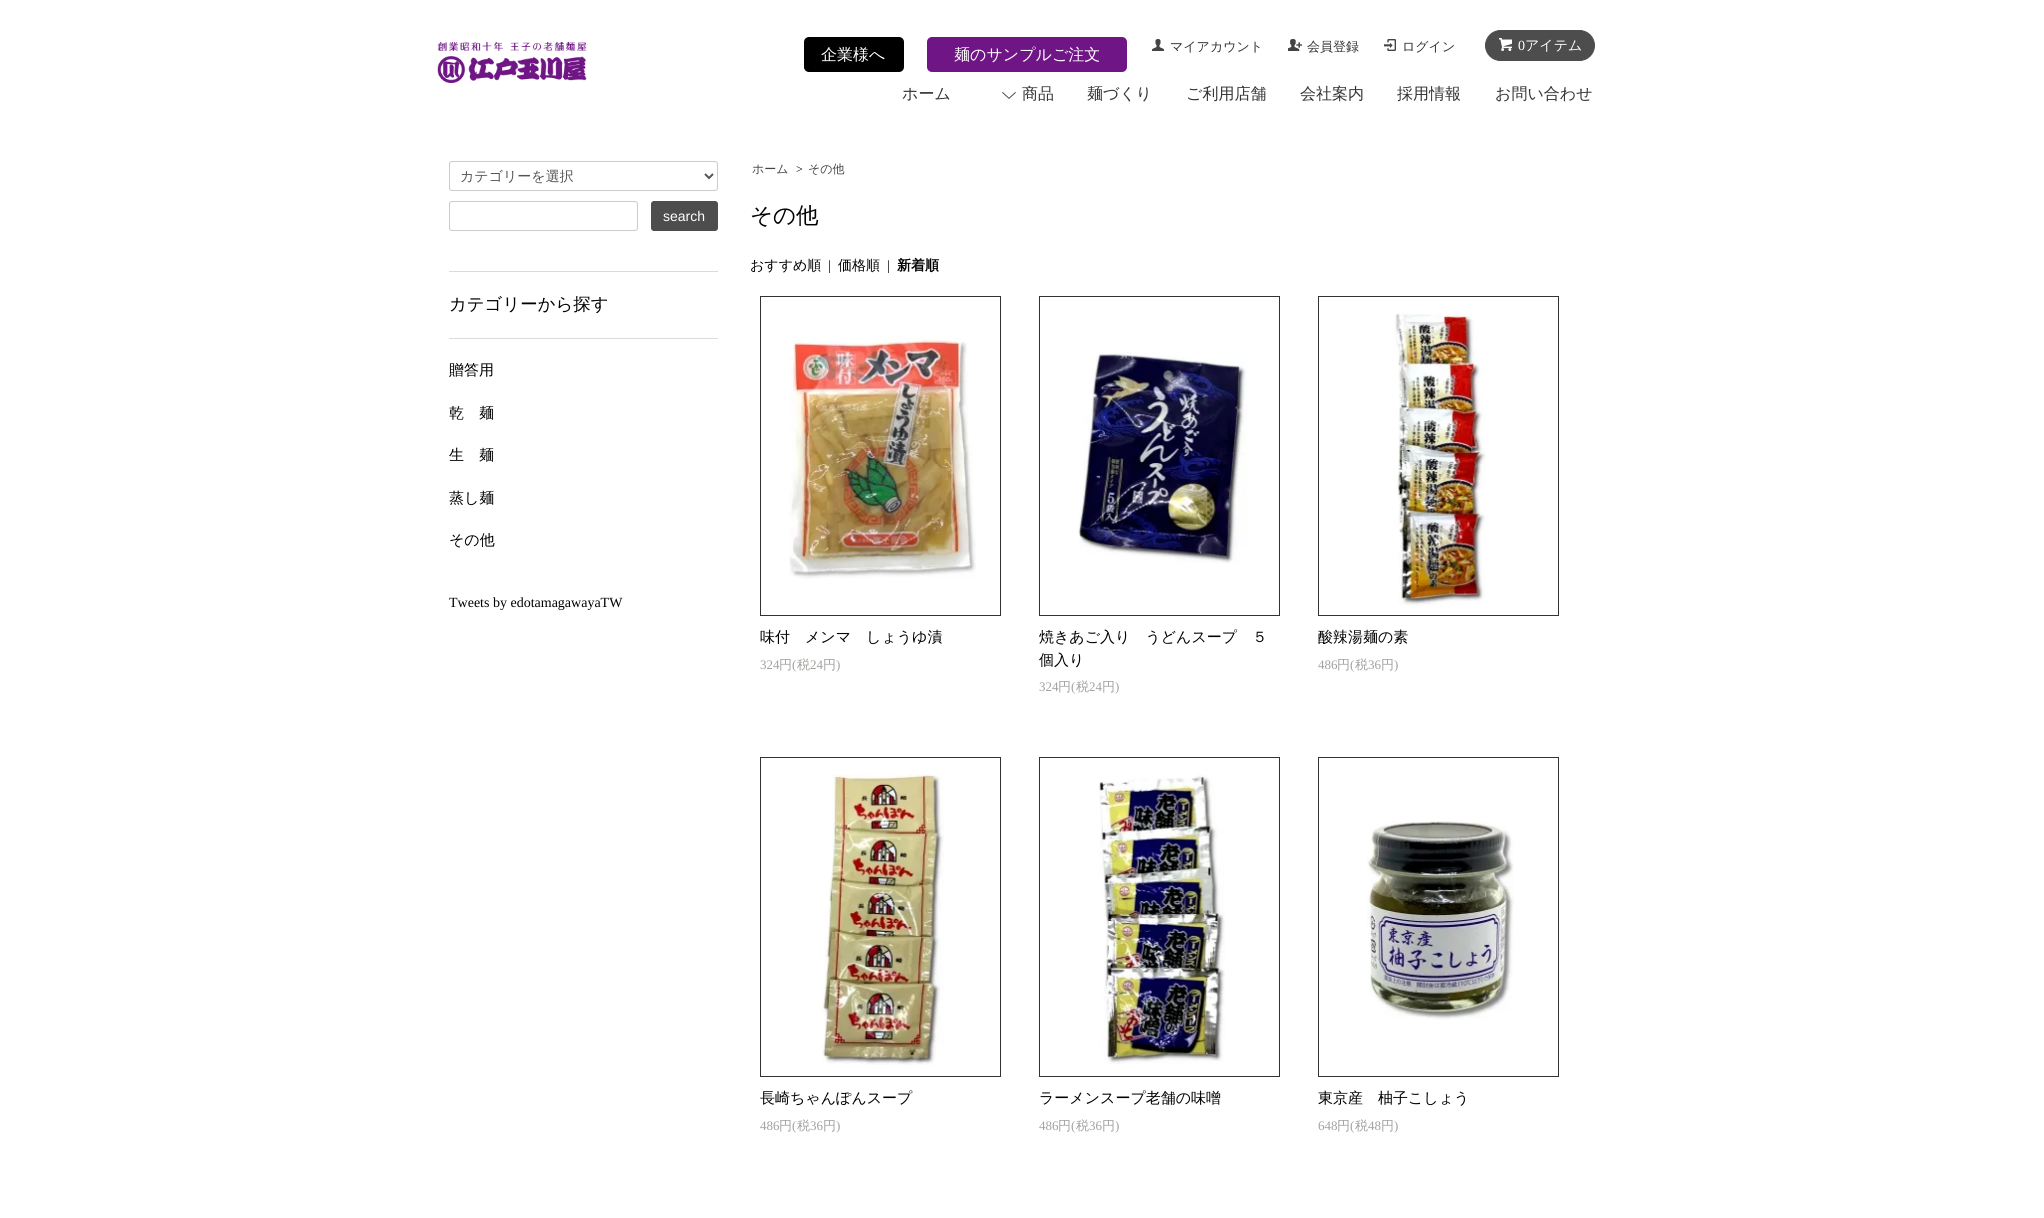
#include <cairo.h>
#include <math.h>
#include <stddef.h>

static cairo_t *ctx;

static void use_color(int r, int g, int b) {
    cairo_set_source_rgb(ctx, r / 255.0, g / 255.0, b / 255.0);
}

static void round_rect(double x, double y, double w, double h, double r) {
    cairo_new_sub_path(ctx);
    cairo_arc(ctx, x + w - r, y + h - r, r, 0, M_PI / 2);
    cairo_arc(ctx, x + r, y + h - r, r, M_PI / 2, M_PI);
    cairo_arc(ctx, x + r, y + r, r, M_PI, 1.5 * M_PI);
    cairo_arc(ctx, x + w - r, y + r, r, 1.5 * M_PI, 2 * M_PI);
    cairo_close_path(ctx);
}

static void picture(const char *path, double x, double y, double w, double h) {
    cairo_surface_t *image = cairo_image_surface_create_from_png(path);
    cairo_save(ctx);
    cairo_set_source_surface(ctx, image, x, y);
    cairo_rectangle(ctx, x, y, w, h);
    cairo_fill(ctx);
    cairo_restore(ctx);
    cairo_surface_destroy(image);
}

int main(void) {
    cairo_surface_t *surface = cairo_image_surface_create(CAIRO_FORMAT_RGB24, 2044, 1218);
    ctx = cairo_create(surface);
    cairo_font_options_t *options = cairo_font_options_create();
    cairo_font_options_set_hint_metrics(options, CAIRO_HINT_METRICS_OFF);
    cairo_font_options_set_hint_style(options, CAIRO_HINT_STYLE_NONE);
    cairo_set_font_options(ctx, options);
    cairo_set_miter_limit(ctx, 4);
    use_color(255, 255, 255);
    cairo_paint(ctx);
    picture("img1.png", 437, 42, 150, 41);
    use_color(0, 0, 0);
    round_rect(804, 37, 100, 35, 5);
    cairo_fill(ctx);
    cairo_select_font_face(ctx, "WenQuanYi Zen Hei Medium", CAIRO_FONT_SLANT_NORMAL, CAIRO_FONT_WEIGHT_NORMAL);
    cairo_set_font_size(ctx, 16);
    use_color(255, 255, 255);
    cairo_move_to(ctx, 821, 60);
    cairo_show_text(ctx, "企業様へ");
    use_color(111, 21, 133);
    round_rect(927, 37, 200, 35, 5);
    cairo_fill(ctx);
    use_color(255, 255, 255);
    cairo_move_to(ctx, 954, 60);
    cairo_show_text(ctx, "麺のサンプルご注文");
    picture("img2.png", 1152, 39, 12, 12);
    cairo_set_font_size(ctx, 13);
    use_color(51, 51, 51);
    cairo_move_to(ctx, 1170, 51);
    cairo_show_text(ctx, "マイアカウント");
    picture("img3.png", 1288, 39, 14, 12);
    cairo_move_to(ctx, 1307, 51);
    cairo_show_text(ctx, "会員登録");
    picture("img4.png", 1384, 39, 12, 12);
    cairo_move_to(ctx, 1402, 51);
    cairo_show_text(ctx, "ログイン");
    use_color(77, 77, 77);
    round_rect(1485.5, 30.5, 109, 30, 15);
    cairo_fill_preserve(ctx);
    cairo_set_line_width(ctx, 1);
    cairo_stroke(ctx);
    picture("img5.png", 1499, 38, 13, 13);
    cairo_select_font_face(ctx, "Liberation Serif", CAIRO_FONT_SLANT_NORMAL, CAIRO_FONT_WEIGHT_NORMAL);
    cairo_set_font_size(ctx, 14);
    use_color(255, 255, 255);
    cairo_move_to(ctx, 1518, 50);
    cairo_show_text(ctx, "0");
    cairo_select_font_face(ctx, "WenQuanYi Zen Hei Medium", CAIRO_FONT_SLANT_NORMAL, CAIRO_FONT_WEIGHT_NORMAL);
    cairo_move_to(ctx, 1525, 50);
    cairo_show_text(ctx, "アイテム");
    cairo_set_font_size(ctx, 16);
    use_color(51, 51, 51);
    cairo_move_to(ctx, 902, 99);
    cairo_show_text(ctx, "ホーム");
    picture("img6.png", 1002, 92, 14, 7);
    cairo_move_to(ctx, 1022, 99);
    cairo_show_text(ctx, "商品");
    cairo_move_to(ctx, 1087, 99);
    cairo_show_text(ctx, "麺づくり");
    cairo_move_to(ctx, 1186, 99);
    cairo_show_text(ctx, "ご利用店舗");
    cairo_move_to(ctx, 1300, 99);
    cairo_show_text(ctx, "会社案内");
    cairo_move_to(ctx, 1397, 99);
    cairo_show_text(ctx, "採用情報");
    cairo_move_to(ctx, 1495, 99);
    cairo_show_text(ctx, "お問い合わせ");
    round_rect(449.5, 161.5, 268, 29, 2.5);
    use_color(204, 204, 204);
    cairo_stroke(ctx);
    cairo_new_path(ctx);
    cairo_move_to(ctx, 705, 174);
    cairo_line_to(ctx, 709, 178);
    cairo_line_to(ctx, 713, 174);
    use_color(85, 85, 85);
    cairo_set_line_width(ctx, 2);
    cairo_stroke(ctx);
    cairo_set_font_size(ctx, 14);
    cairo_move_to(ctx, 460, 181);
    cairo_show_text(ctx, "カテゴリーを選択");
    round_rect(449.5, 201.5, 188, 29, 2.5);
    use_color(204, 204, 204);
    cairo_set_line_width(ctx, 1);
    cairo_stroke(ctx);
    use_color(77, 77, 77);
    round_rect(651.5, 201.5, 66, 29, 2.5);
    cairo_fill_preserve(ctx);
    cairo_stroke(ctx);
    cairo_select_font_face(ctx, "Liberation Sans", CAIRO_FONT_SLANT_NORMAL, CAIRO_FONT_WEIGHT_NORMAL);
    use_color(255, 255, 255);
    cairo_move_to(ctx, 663, 221);
    cairo_show_text(ctx, "search");
    use_color(219, 219, 219);
    cairo_rectangle(ctx, 449, 271, 269, 1);
    cairo_fill(ctx);
    cairo_rectangle(ctx, 449, 338, 269, 1);
    cairo_fill(ctx);
    cairo_select_font_face(ctx, "WenQuanYi Zen Hei Medium", CAIRO_FONT_SLANT_NORMAL, CAIRO_FONT_WEIGHT_NORMAL);
    cairo_set_font_size(ctx, 17.4);
    use_color(0, 0, 0);
    cairo_move_to(ctx, 449, 310);
    cairo_show_text(ctx, "カテゴリーから探す");
    cairo_set_font_size(ctx, 15);
    cairo_move_to(ctx, 449, 375);
    cairo_show_text(ctx, "贈答用");
    cairo_move_to(ctx, 449, 418);
    cairo_show_text(ctx, "乾　麺");
    cairo_move_to(ctx, 449, 460);
    cairo_show_text(ctx, "生　麺");
    cairo_move_to(ctx, 449, 503);
    cairo_show_text(ctx, "蒸し麺");
    cairo_move_to(ctx, 449, 545);
    cairo_show_text(ctx, "その他");
    cairo_select_font_face(ctx, "Liberation Serif", CAIRO_FONT_SLANT_NORMAL, CAIRO_FONT_WEIGHT_NORMAL);
    cairo_set_font_size(ctx, 14);
    cairo_move_to(ctx, 449, 607);
    cairo_show_text(ctx, "Tweets by edotamagawayaTW");
    cairo_select_font_face(ctx, "WenQuanYi Zen Hei Medium", CAIRO_FONT_SLANT_NORMAL, CAIRO_FONT_WEIGHT_NORMAL);
    cairo_set_font_size(ctx, 12);
    use_color(68, 68, 68);
    cairo_move_to(ctx, 752, 173);
    cairo_show_text(ctx, "ホーム");
    cairo_select_font_face(ctx, "Liberation Serif", CAIRO_FONT_SLANT_NORMAL, CAIRO_FONT_WEIGHT_NORMAL);
    use_color(0, 0, 0);
    cairo_move_to(ctx, 796, 173);
    cairo_show_text(ctx, ">");
    cairo_select_font_face(ctx, "WenQuanYi Zen Hei Medium", CAIRO_FONT_SLANT_NORMAL, CAIRO_FONT_WEIGHT_NORMAL);
    use_color(68, 68, 68);
    cairo_move_to(ctx, 808, 173);
    cairo_show_text(ctx, "その他");
    cairo_set_font_size(ctx, 22.5);
    use_color(0, 0, 0);
    cairo_move_to(ctx, 750, 223);
    cairo_show_text(ctx, "その他");
    cairo_set_font_size(ctx, 14);
    cairo_move_to(ctx, 750, 270);
    cairo_show_text(ctx, "おすすめ順");
    cairo_select_font_face(ctx, "Liberation Serif", CAIRO_FONT_SLANT_NORMAL, CAIRO_FONT_WEIGHT_NORMAL);
    cairo_move_to(ctx, 828, 270);
    cairo_show_text(ctx, "|");
    cairo_select_font_face(ctx, "WenQuanYi Zen Hei Medium", CAIRO_FONT_SLANT_NORMAL, CAIRO_FONT_WEIGHT_NORMAL);
    cairo_move_to(ctx, 838, 270);
    cairo_show_text(ctx, "価格順");
    cairo_select_font_face(ctx, "Liberation Serif", CAIRO_FONT_SLANT_NORMAL, CAIRO_FONT_WEIGHT_NORMAL);
    cairo_move_to(ctx, 887, 270);
    cairo_show_text(ctx, "|");
    cairo_select_font_face(ctx, "WenQuanYi Zen Hei", CAIRO_FONT_SLANT_NORMAL, CAIRO_FONT_WEIGHT_BOLD);
    cairo_move_to(ctx, 897, 270);
    cairo_show_text(ctx, "新着順");
    cairo_rectangle(ctx, 760.5, 296.5, 240, 319);
    use_color(51, 51, 51);
    cairo_stroke(ctx);
    picture("img7.png", 789, 336, 187, 243);
    cairo_select_font_face(ctx, "WenQuanYi Zen Hei Medium", CAIRO_FONT_SLANT_NORMAL, CAIRO_FONT_WEIGHT_NORMAL);
    cairo_set_font_size(ctx, 15);
    use_color(0, 0, 0);
    cairo_move_to(ctx, 760, 642);
    cairo_show_text(ctx, "味付　メンマ　しょうゆ漬");
    cairo_select_font_face(ctx, "Liberation Serif", CAIRO_FONT_SLANT_NORMAL, CAIRO_FONT_WEIGHT_NORMAL);
    cairo_set_font_size(ctx, 13);
    use_color(161, 161, 159);
    cairo_move_to(ctx, 760, 669);
    cairo_show_text(ctx, "324");
    cairo_select_font_face(ctx, "WenQuanYi Zen Hei Medium", CAIRO_FONT_SLANT_NORMAL, CAIRO_FONT_WEIGHT_NORMAL);
    cairo_move_to(ctx, 779, 669);
    cairo_show_text(ctx, "円");
    cairo_select_font_face(ctx, "Liberation Serif", CAIRO_FONT_SLANT_NORMAL, CAIRO_FONT_WEIGHT_NORMAL);
    cairo_move_to(ctx, 792, 669);
    cairo_show_text(ctx, "(");
    cairo_select_font_face(ctx, "WenQuanYi Zen Hei Medium", CAIRO_FONT_SLANT_NORMAL, CAIRO_FONT_WEIGHT_NORMAL);
    cairo_move_to(ctx, 797, 669);
    cairo_show_text(ctx, "税");
    cairo_select_font_face(ctx, "Liberation Serif", CAIRO_FONT_SLANT_NORMAL, CAIRO_FONT_WEIGHT_NORMAL);
    cairo_move_to(ctx, 810, 669);
    cairo_show_text(ctx, "24");
    cairo_select_font_face(ctx, "WenQuanYi Zen Hei Medium", CAIRO_FONT_SLANT_NORMAL, CAIRO_FONT_WEIGHT_NORMAL);
    cairo_move_to(ctx, 823, 669);
    cairo_show_text(ctx, "円");
    cairo_select_font_face(ctx, "Liberation Serif", CAIRO_FONT_SLANT_NORMAL, CAIRO_FONT_WEIGHT_NORMAL);
    cairo_move_to(ctx, 836, 669);
    cairo_show_text(ctx, ")");
    cairo_rectangle(ctx, 1039.5, 296.5, 240, 319);
    use_color(51, 51, 51);
    cairo_stroke(ctx);
    picture("img8.png", 1078, 352, 169, 211);
    cairo_select_font_face(ctx, "WenQuanYi Zen Hei Medium", CAIRO_FONT_SLANT_NORMAL, CAIRO_FONT_WEIGHT_NORMAL);
    cairo_set_font_size(ctx, 15);
    use_color(0, 0, 0);
    cairo_move_to(ctx, 1039, 642);
    cairo_show_text(ctx, "焼きあご入り　うどんスープ　５");
    cairo_move_to(ctx, 1039, 665);
    cairo_show_text(ctx, "個入り");
    cairo_select_font_face(ctx, "Liberation Serif", CAIRO_FONT_SLANT_NORMAL, CAIRO_FONT_WEIGHT_NORMAL);
    cairo_set_font_size(ctx, 13);
    use_color(161, 161, 159);
    cairo_move_to(ctx, 1039, 691);
    cairo_show_text(ctx, "324");
    cairo_select_font_face(ctx, "WenQuanYi Zen Hei Medium", CAIRO_FONT_SLANT_NORMAL, CAIRO_FONT_WEIGHT_NORMAL);
    cairo_move_to(ctx, 1058, 691);
    cairo_show_text(ctx, "円");
    cairo_select_font_face(ctx, "Liberation Serif", CAIRO_FONT_SLANT_NORMAL, CAIRO_FONT_WEIGHT_NORMAL);
    cairo_move_to(ctx, 1071, 691);
    cairo_show_text(ctx, "(");
    cairo_select_font_face(ctx, "WenQuanYi Zen Hei Medium", CAIRO_FONT_SLANT_NORMAL, CAIRO_FONT_WEIGHT_NORMAL);
    cairo_move_to(ctx, 1076, 691);
    cairo_show_text(ctx, "税");
    cairo_select_font_face(ctx, "Liberation Serif", CAIRO_FONT_SLANT_NORMAL, CAIRO_FONT_WEIGHT_NORMAL);
    cairo_move_to(ctx, 1089, 691);
    cairo_show_text(ctx, "24");
    cairo_select_font_face(ctx, "WenQuanYi Zen Hei Medium", CAIRO_FONT_SLANT_NORMAL, CAIRO_FONT_WEIGHT_NORMAL);
    cairo_move_to(ctx, 1102, 691);
    cairo_show_text(ctx, "円");
    cairo_select_font_face(ctx, "Liberation Serif", CAIRO_FONT_SLANT_NORMAL, CAIRO_FONT_WEIGHT_NORMAL);
    cairo_move_to(ctx, 1115, 691);
    cairo_show_text(ctx, ")");
    cairo_rectangle(ctx, 1318.5, 296.5, 240, 319);
    use_color(51, 51, 51);
    cairo_stroke(ctx);
    picture("img9.png", 1394, 313, 92, 293);
    cairo_select_font_face(ctx, "WenQuanYi Zen Hei Medium", CAIRO_FONT_SLANT_NORMAL, CAIRO_FONT_WEIGHT_NORMAL);
    cairo_set_font_size(ctx, 15);
    use_color(0, 0, 0);
    cairo_move_to(ctx, 1318, 642);
    cairo_show_text(ctx, "酸辣湯麺の素");
    cairo_select_font_face(ctx, "Liberation Serif", CAIRO_FONT_SLANT_NORMAL, CAIRO_FONT_WEIGHT_NORMAL);
    cairo_set_font_size(ctx, 13);
    use_color(161, 161, 159);
    cairo_move_to(ctx, 1318, 669);
    cairo_show_text(ctx, "486");
    cairo_select_font_face(ctx, "WenQuanYi Zen Hei Medium", CAIRO_FONT_SLANT_NORMAL, CAIRO_FONT_WEIGHT_NORMAL);
    cairo_move_to(ctx, 1337, 669);
    cairo_show_text(ctx, "円");
    cairo_select_font_face(ctx, "Liberation Serif", CAIRO_FONT_SLANT_NORMAL, CAIRO_FONT_WEIGHT_NORMAL);
    cairo_move_to(ctx, 1350, 669);
    cairo_show_text(ctx, "(");
    cairo_select_font_face(ctx, "WenQuanYi Zen Hei Medium", CAIRO_FONT_SLANT_NORMAL, CAIRO_FONT_WEIGHT_NORMAL);
    cairo_move_to(ctx, 1355, 669);
    cairo_show_text(ctx, "税");
    cairo_select_font_face(ctx, "Liberation Serif", CAIRO_FONT_SLANT_NORMAL, CAIRO_FONT_WEIGHT_NORMAL);
    cairo_move_to(ctx, 1368, 669);
    cairo_show_text(ctx, "36");
    cairo_select_font_face(ctx, "WenQuanYi Zen Hei Medium", CAIRO_FONT_SLANT_NORMAL, CAIRO_FONT_WEIGHT_NORMAL);
    cairo_move_to(ctx, 1381, 669);
    cairo_show_text(ctx, "円");
    cairo_select_font_face(ctx, "Liberation Serif", CAIRO_FONT_SLANT_NORMAL, CAIRO_FONT_WEIGHT_NORMAL);
    cairo_move_to(ctx, 1394, 669);
    cairo_show_text(ctx, ")");
    cairo_rectangle(ctx, 760.5, 757.5, 240, 319);
    use_color(51, 51, 51);
    cairo_stroke(ctx);
    picture("img10.png", 821, 774, 123, 291);
    cairo_select_font_face(ctx, "WenQuanYi Zen Hei Medium", CAIRO_FONT_SLANT_NORMAL, CAIRO_FONT_WEIGHT_NORMAL);
    cairo_set_font_size(ctx, 15);
    use_color(0, 0, 0);
    cairo_move_to(ctx, 760, 1103);
    cairo_show_text(ctx, "長崎ちゃんぽんスープ");
    cairo_select_font_face(ctx, "Liberation Serif", CAIRO_FONT_SLANT_NORMAL, CAIRO_FONT_WEIGHT_NORMAL);
    cairo_set_font_size(ctx, 13);
    use_color(161, 161, 159);
    cairo_move_to(ctx, 760, 1130);
    cairo_show_text(ctx, "486");
    cairo_select_font_face(ctx, "WenQuanYi Zen Hei Medium", CAIRO_FONT_SLANT_NORMAL, CAIRO_FONT_WEIGHT_NORMAL);
    cairo_move_to(ctx, 779, 1130);
    cairo_show_text(ctx, "円");
    cairo_select_font_face(ctx, "Liberation Serif", CAIRO_FONT_SLANT_NORMAL, CAIRO_FONT_WEIGHT_NORMAL);
    cairo_move_to(ctx, 792, 1130);
    cairo_show_text(ctx, "(");
    cairo_select_font_face(ctx, "WenQuanYi Zen Hei Medium", CAIRO_FONT_SLANT_NORMAL, CAIRO_FONT_WEIGHT_NORMAL);
    cairo_move_to(ctx, 797, 1130);
    cairo_show_text(ctx, "税");
    cairo_select_font_face(ctx, "Liberation Serif", CAIRO_FONT_SLANT_NORMAL, CAIRO_FONT_WEIGHT_NORMAL);
    cairo_move_to(ctx, 810, 1130);
    cairo_show_text(ctx, "36");
    cairo_select_font_face(ctx, "WenQuanYi Zen Hei Medium", CAIRO_FONT_SLANT_NORMAL, CAIRO_FONT_WEIGHT_NORMAL);
    cairo_move_to(ctx, 823, 1130);
    cairo_show_text(ctx, "円");
    cairo_select_font_face(ctx, "Liberation Serif", CAIRO_FONT_SLANT_NORMAL, CAIRO_FONT_WEIGHT_NORMAL);
    cairo_move_to(ctx, 836, 1130);
    cairo_show_text(ctx, ")");
    cairo_rectangle(ctx, 1039.5, 757.5, 240, 319);
    use_color(51, 51, 51);
    cairo_stroke(ctx);
    picture("img11.png", 1099, 774, 126, 290);
    cairo_select_font_face(ctx, "WenQuanYi Zen Hei Medium", CAIRO_FONT_SLANT_NORMAL, CAIRO_FONT_WEIGHT_NORMAL);
    cairo_set_font_size(ctx, 15);
    use_color(0, 0, 0);
    cairo_move_to(ctx, 1039, 1103);
    cairo_show_text(ctx, "ラーメンスープ老舗の味噌");
    cairo_select_font_face(ctx, "Liberation Serif", CAIRO_FONT_SLANT_NORMAL, CAIRO_FONT_WEIGHT_NORMAL);
    cairo_set_font_size(ctx, 13);
    use_color(161, 161, 159);
    cairo_move_to(ctx, 1039, 1130);
    cairo_show_text(ctx, "486");
    cairo_select_font_face(ctx, "WenQuanYi Zen Hei Medium", CAIRO_FONT_SLANT_NORMAL, CAIRO_FONT_WEIGHT_NORMAL);
    cairo_move_to(ctx, 1058, 1130);
    cairo_show_text(ctx, "円");
    cairo_select_font_face(ctx, "Liberation Serif", CAIRO_FONT_SLANT_NORMAL, CAIRO_FONT_WEIGHT_NORMAL);
    cairo_move_to(ctx, 1071, 1130);
    cairo_show_text(ctx, "(");
    cairo_select_font_face(ctx, "WenQuanYi Zen Hei Medium", CAIRO_FONT_SLANT_NORMAL, CAIRO_FONT_WEIGHT_NORMAL);
    cairo_move_to(ctx, 1076, 1130);
    cairo_show_text(ctx, "税");
    cairo_select_font_face(ctx, "Liberation Serif", CAIRO_FONT_SLANT_NORMAL, CAIRO_FONT_WEIGHT_NORMAL);
    cairo_move_to(ctx, 1089, 1130);
    cairo_show_text(ctx, "36");
    cairo_select_font_face(ctx, "WenQuanYi Zen Hei Medium", CAIRO_FONT_SLANT_NORMAL, CAIRO_FONT_WEIGHT_NORMAL);
    cairo_move_to(ctx, 1102, 1130);
    cairo_show_text(ctx, "円");
    cairo_select_font_face(ctx, "Liberation Serif", CAIRO_FONT_SLANT_NORMAL, CAIRO_FONT_WEIGHT_NORMAL);
    cairo_move_to(ctx, 1115, 1130);
    cairo_show_text(ctx, ")");
    cairo_rectangle(ctx, 1318.5, 757.5, 240, 319);
    use_color(51, 51, 51);
    cairo_stroke(ctx);
    picture("img12.png", 1367, 821, 147, 199);
    cairo_select_font_face(ctx, "WenQuanYi Zen Hei Medium", CAIRO_FONT_SLANT_NORMAL, CAIRO_FONT_WEIGHT_NORMAL);
    cairo_set_font_size(ctx, 15);
    use_color(0, 0, 0);
    cairo_move_to(ctx, 1318, 1103);
    cairo_show_text(ctx, "東京産　柚子こしょう");
    cairo_select_font_face(ctx, "Liberation Serif", CAIRO_FONT_SLANT_NORMAL, CAIRO_FONT_WEIGHT_NORMAL);
    cairo_set_font_size(ctx, 13);
    use_color(161, 161, 159);
    cairo_move_to(ctx, 1318, 1130);
    cairo_show_text(ctx, "648");
    cairo_select_font_face(ctx, "WenQuanYi Zen Hei Medium", CAIRO_FONT_SLANT_NORMAL, CAIRO_FONT_WEIGHT_NORMAL);
    cairo_move_to(ctx, 1337, 1130);
    cairo_show_text(ctx, "円");
    cairo_select_font_face(ctx, "Liberation Serif", CAIRO_FONT_SLANT_NORMAL, CAIRO_FONT_WEIGHT_NORMAL);
    cairo_move_to(ctx, 1350, 1130);
    cairo_show_text(ctx, "(");
    cairo_select_font_face(ctx, "WenQuanYi Zen Hei Medium", CAIRO_FONT_SLANT_NORMAL, CAIRO_FONT_WEIGHT_NORMAL);
    cairo_move_to(ctx, 1355, 1130);
    cairo_show_text(ctx, "税");
    cairo_select_font_face(ctx, "Liberation Serif", CAIRO_FONT_SLANT_NORMAL, CAIRO_FONT_WEIGHT_NORMAL);
    cairo_move_to(ctx, 1368, 1130);
    cairo_show_text(ctx, "48");
    cairo_select_font_face(ctx, "WenQuanYi Zen Hei Medium", CAIRO_FONT_SLANT_NORMAL, CAIRO_FONT_WEIGHT_NORMAL);
    cairo_move_to(ctx, 1381, 1130);
    cairo_show_text(ctx, "円");
    cairo_select_font_face(ctx, "Liberation Serif", CAIRO_FONT_SLANT_NORMAL, CAIRO_FONT_WEIGHT_NORMAL);
    cairo_move_to(ctx, 1394, 1130);
    cairo_show_text(ctx, ")");
    cairo_surface_write_to_png(surface, "result.png");
    cairo_font_options_destroy(options);
    cairo_destroy(ctx);
    cairo_surface_destroy(surface);
    return 0;
}
